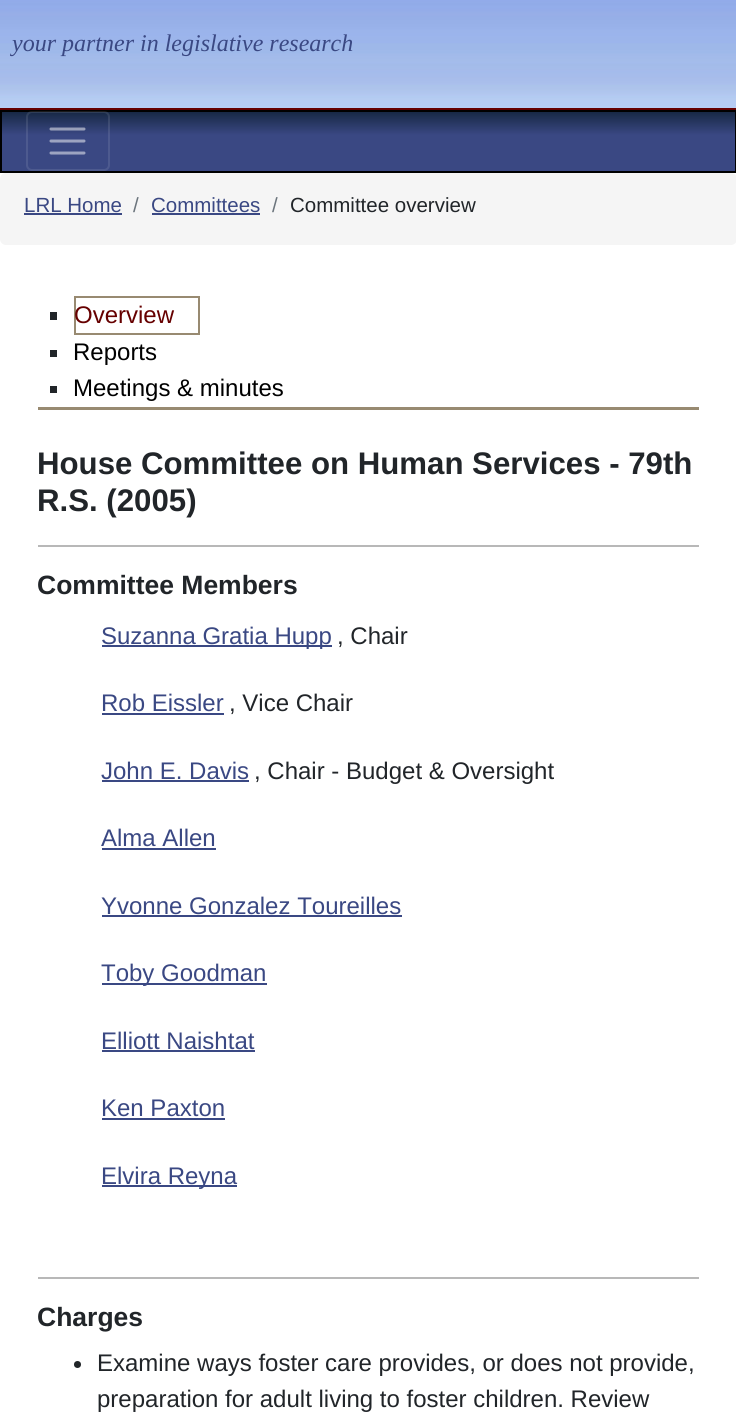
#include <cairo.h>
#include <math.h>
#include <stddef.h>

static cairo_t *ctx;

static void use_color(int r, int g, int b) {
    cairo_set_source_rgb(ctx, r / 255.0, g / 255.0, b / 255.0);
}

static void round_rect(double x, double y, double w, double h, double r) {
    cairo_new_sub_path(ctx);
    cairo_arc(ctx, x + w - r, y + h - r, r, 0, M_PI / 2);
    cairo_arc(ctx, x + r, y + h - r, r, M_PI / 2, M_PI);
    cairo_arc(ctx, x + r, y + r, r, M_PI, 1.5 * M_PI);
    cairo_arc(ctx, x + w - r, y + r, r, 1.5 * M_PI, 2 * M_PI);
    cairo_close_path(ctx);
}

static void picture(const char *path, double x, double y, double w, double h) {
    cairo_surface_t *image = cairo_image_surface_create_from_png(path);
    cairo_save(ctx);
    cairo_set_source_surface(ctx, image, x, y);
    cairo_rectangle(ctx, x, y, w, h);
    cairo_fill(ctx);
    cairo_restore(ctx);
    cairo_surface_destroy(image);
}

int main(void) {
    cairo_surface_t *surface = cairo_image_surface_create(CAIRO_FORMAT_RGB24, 736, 1413);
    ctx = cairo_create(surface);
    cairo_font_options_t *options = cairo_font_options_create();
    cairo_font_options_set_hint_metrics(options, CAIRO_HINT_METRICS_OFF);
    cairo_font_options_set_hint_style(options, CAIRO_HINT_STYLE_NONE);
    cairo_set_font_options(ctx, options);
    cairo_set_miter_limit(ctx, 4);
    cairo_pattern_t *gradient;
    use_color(255, 255, 255);
    cairo_paint(ctx);
    picture("img1.png", 0, 0, 736, 108);
    use_color(102, 0, 0);
    cairo_rectangle(ctx, 0, 108, 736, 2);
    cairo_fill(ctx);
    cairo_select_font_face(ctx, "Liberation Serif", CAIRO_FONT_SLANT_ITALIC, CAIRO_FONT_WEIGHT_NORMAL);
    cairo_set_font_size(ctx, 24);
    use_color(58, 72, 131);
    cairo_move_to(ctx, 12, 51);
    cairo_show_text(ctx, "your partner in legislative research");
    gradient = cairo_pattern_create_linear(368, 111, 368, 171);
    cairo_pattern_add_color_stop_rgba(gradient, 0, 0.086, 0.153, 0.259, 1);
    cairo_pattern_add_color_stop_rgba(gradient, 0.4, 0.227, 0.282, 0.514, 1);
    cairo_set_source(ctx, gradient);
    cairo_pattern_destroy(gradient);
    cairo_rectangle(ctx, 2, 112, 733, 59);
    cairo_fill(ctx);
    cairo_rectangle(ctx, 1, 111, 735, 61);
    use_color(0, 0, 0);
    cairo_stroke(ctx);
    round_rect(27, 112, 82, 58, 5);
    cairo_set_source_rgba(ctx, 1, 1, 1, 0.1);
    cairo_stroke(ctx);
    cairo_new_path(ctx);
    cairo_move_to(ctx, 51, 129);
    cairo_line_to(ctx, 84, 129);
    cairo_move_to(ctx, 51, 141);
    cairo_line_to(ctx, 84, 141);
    cairo_move_to(ctx, 51, 153);
    cairo_line_to(ctx, 84, 153);
    cairo_set_source_rgba(ctx, 1, 1, 1, 0.5);
    cairo_set_line_width(ctx, 3);
    cairo_set_line_cap(ctx, CAIRO_LINE_CAP_ROUND);
    cairo_stroke(ctx);
    use_color(245, 245, 245);
    round_rect(0, 173, 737, 72, 6);
    cairo_fill(ctx);
    cairo_select_font_face(ctx, "Liberation Sans", CAIRO_FONT_SLANT_NORMAL, CAIRO_FONT_WEIGHT_NORMAL);
    cairo_set_font_size(ctx, 20.5);
    use_color(58, 72, 131);
    cairo_move_to(ctx, 24, 212);
    cairo_show_text(ctx, "LRL Home");
    cairo_rectangle(ctx, 24, 213, 98, 2);
    cairo_fill(ctx);
    use_color(108, 117, 125);
    cairo_move_to(ctx, 133, 212);
    cairo_show_text(ctx, "/");
    use_color(58, 72, 131);
    cairo_move_to(ctx, 151, 212);
    cairo_show_text(ctx, "Committees");
    cairo_rectangle(ctx, 152, 213, 108, 2);
    cairo_fill(ctx);
    use_color(108, 117, 125);
    cairo_move_to(ctx, 272, 212);
    cairo_show_text(ctx, "/");
    use_color(33, 37, 41);
    cairo_move_to(ctx, 290, 212);
    cairo_show_text(ctx, "Committee overview");
    cairo_rectangle(ctx, 50, 312, 7, 8);
    cairo_fill(ctx);
    cairo_rectangle(ctx, 75, 297, 124, 37);
    use_color(152, 138, 113);
    cairo_set_line_width(ctx, 2);
    cairo_set_line_cap(ctx, CAIRO_LINE_CAP_BUTT);
    cairo_stroke(ctx);
    cairo_set_font_size(ctx, 24);
    use_color(102, 0, 0);
    cairo_move_to(ctx, 74, 323);
    cairo_show_text(ctx, "Overview");
    use_color(33, 37, 41);
    cairo_rectangle(ctx, 50, 350, 7, 7);
    cairo_fill(ctx);
    use_color(0, 0, 0);
    cairo_move_to(ctx, 73, 360);
    cairo_show_text(ctx, "Reports");
    use_color(33, 37, 41);
    cairo_rectangle(ctx, 50, 386, 7, 7);
    cairo_fill(ctx);
    use_color(0, 0, 0);
    cairo_move_to(ctx, 73, 396);
    cairo_show_text(ctx, "Meetings & minutes");
    use_color(152, 138, 113);
    cairo_rectangle(ctx, 38, 407, 661, 3);
    cairo_fill(ctx);
    cairo_select_font_face(ctx, "Liberation Sans", CAIRO_FONT_SLANT_NORMAL, CAIRO_FONT_WEIGHT_BOLD);
    cairo_set_font_size(ctx, 31.2);
    use_color(33, 37, 41);
    cairo_move_to(ctx, 37, 474);
    cairo_show_text(ctx, "House Committee on Human Services - 79th");
    cairo_move_to(ctx, 37, 511);
    cairo_show_text(ctx, "R.S. (2005)");
    use_color(184, 184, 184);
    cairo_rectangle(ctx, 38, 545, 661, 2);
    cairo_fill(ctx);
    cairo_set_font_size(ctx, 26.5);
    use_color(33, 37, 41);
    cairo_move_to(ctx, 37, 594);
    cairo_show_text(ctx, "Committee Members");
    use_color(58, 72, 131);
    cairo_rectangle(ctx, 102, 645, 230, 2);
    cairo_fill(ctx);
    cairo_select_font_face(ctx, "Liberation Sans", CAIRO_FONT_SLANT_NORMAL, CAIRO_FONT_WEIGHT_NORMAL);
    cairo_set_font_size(ctx, 24);
    cairo_move_to(ctx, 101, 644);
    cairo_show_text(ctx, "Suzanna Gratia Hupp");
    use_color(33, 37, 41);
    cairo_move_to(ctx, 337, 644);
    cairo_show_text(ctx, ", Chair");
    use_color(58, 72, 131);
    cairo_move_to(ctx, 101, 711);
    cairo_show_text(ctx, "Rob Eissler");
    cairo_rectangle(ctx, 102, 713, 122, 2);
    cairo_fill(ctx);
    use_color(33, 37, 41);
    cairo_move_to(ctx, 229, 711);
    cairo_show_text(ctx, ", Vice Chair");
    use_color(58, 72, 131);
    cairo_move_to(ctx, 101, 779);
    cairo_show_text(ctx, "John E. Davis");
    cairo_rectangle(ctx, 102, 780, 147, 2);
    cairo_fill(ctx);
    use_color(33, 37, 41);
    cairo_move_to(ctx, 254, 779);
    cairo_show_text(ctx, ", Chair - Budget & Oversight");
    use_color(58, 72, 131);
    cairo_move_to(ctx, 101, 846);
    cairo_show_text(ctx, "Alma Allen");
    cairo_rectangle(ctx, 102, 848, 114, 2);
    cairo_fill(ctx);
    cairo_move_to(ctx, 101, 914);
    cairo_show_text(ctx, "Yvonne Gonzalez Toureilles");
    cairo_rectangle(ctx, 102, 915, 300, 2);
    cairo_fill(ctx);
    cairo_rectangle(ctx, 102, 983, 165, 2);
    cairo_fill(ctx);
    cairo_move_to(ctx, 101, 981);
    cairo_show_text(ctx, "Toby Goodman");
    cairo_move_to(ctx, 101, 1049);
    cairo_show_text(ctx, "Elliott Naishtat");
    cairo_rectangle(ctx, 102, 1050, 153, 2);
    cairo_fill(ctx);
    cairo_move_to(ctx, 101, 1116);
    cairo_show_text(ctx, "Ken Paxton");
    cairo_rectangle(ctx, 102, 1118, 123, 2);
    cairo_fill(ctx);
    cairo_rectangle(ctx, 102, 1185, 135, 2);
    cairo_fill(ctx);
    cairo_move_to(ctx, 101, 1184);
    cairo_show_text(ctx, "Elvira Reyna");
    use_color(184, 184, 184);
    cairo_rectangle(ctx, 38, 1277, 661, 2);
    cairo_fill(ctx);
    cairo_select_font_face(ctx, "Liberation Sans", CAIRO_FONT_SLANT_NORMAL, CAIRO_FONT_WEIGHT_BOLD);
    cairo_set_font_size(ctx, 26.5);
    use_color(33, 37, 41);
    cairo_move_to(ctx, 37, 1326);
    cairo_show_text(ctx, "Charges");
    cairo_new_path(ctx);
    cairo_arc(ctx, 77.5, 1364.5, 3.5, 0, 2 * M_PI);
    cairo_fill(ctx);
    cairo_select_font_face(ctx, "Liberation Sans", CAIRO_FONT_SLANT_NORMAL, CAIRO_FONT_WEIGHT_NORMAL);
    cairo_set_font_size(ctx, 24);
    cairo_move_to(ctx, 97, 1371);
    cairo_show_text(ctx, "Examine ways foster care provides, or does not provide,");
    cairo_move_to(ctx, 97, 1407);
    cairo_show_text(ctx, "preparation for adult living to foster children. Review");
    cairo_surface_write_to_png(surface, "result.png");
    cairo_font_options_destroy(options);
    cairo_destroy(ctx);
    cairo_surface_destroy(surface);
    return 0;
}
